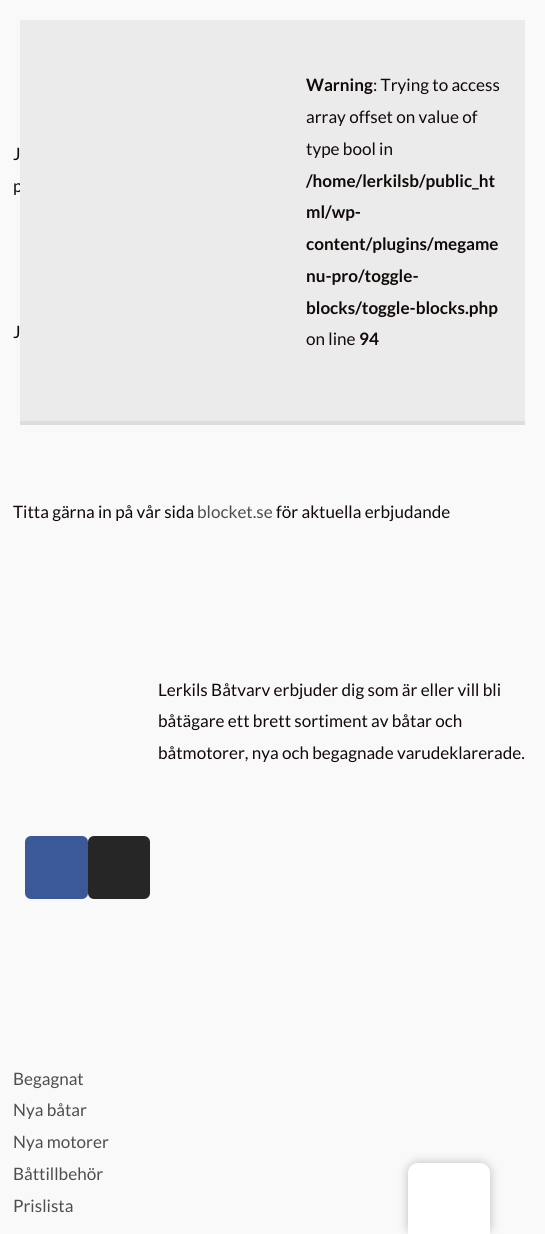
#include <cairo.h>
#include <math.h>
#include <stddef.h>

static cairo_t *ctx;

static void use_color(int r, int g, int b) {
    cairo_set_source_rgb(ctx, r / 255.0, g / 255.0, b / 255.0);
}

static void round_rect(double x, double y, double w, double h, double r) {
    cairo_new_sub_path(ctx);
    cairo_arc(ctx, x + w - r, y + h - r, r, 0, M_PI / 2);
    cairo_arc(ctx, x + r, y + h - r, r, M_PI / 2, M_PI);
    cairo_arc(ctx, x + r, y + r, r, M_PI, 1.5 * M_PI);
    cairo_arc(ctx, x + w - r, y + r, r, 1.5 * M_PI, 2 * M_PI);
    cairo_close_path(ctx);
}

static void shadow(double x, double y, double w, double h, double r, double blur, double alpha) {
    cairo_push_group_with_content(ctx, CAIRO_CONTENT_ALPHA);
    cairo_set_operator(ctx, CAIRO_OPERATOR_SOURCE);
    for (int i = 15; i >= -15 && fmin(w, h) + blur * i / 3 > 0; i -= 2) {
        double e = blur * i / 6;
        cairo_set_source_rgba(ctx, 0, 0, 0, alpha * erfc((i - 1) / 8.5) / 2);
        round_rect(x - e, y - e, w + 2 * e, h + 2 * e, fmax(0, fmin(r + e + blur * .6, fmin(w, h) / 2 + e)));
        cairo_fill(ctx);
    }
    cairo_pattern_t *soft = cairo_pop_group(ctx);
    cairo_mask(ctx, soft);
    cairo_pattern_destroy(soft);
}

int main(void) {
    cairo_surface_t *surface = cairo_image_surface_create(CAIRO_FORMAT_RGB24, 545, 1234);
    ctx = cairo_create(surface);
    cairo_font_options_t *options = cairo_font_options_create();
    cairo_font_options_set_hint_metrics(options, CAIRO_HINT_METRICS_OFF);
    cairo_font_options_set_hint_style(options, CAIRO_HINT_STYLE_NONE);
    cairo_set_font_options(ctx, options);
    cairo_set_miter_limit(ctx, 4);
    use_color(249, 249, 249);
    cairo_paint(ctx);
    cairo_select_font_face(ctx, "Lato", CAIRO_FONT_SLANT_NORMAL, CAIRO_FONT_WEIGHT_NORMAL);
    cairo_set_font_size(ctx, 17.1);
    use_color(18, 9, 9);
    cairo_move_to(ctx, 13, 192);
    cairo_show_text(ctx, "p");
    use_color(235, 235, 235);
    cairo_rectangle(ctx, 20, 20, 505, 401);
    cairo_fill(ctx);
    use_color(221, 221, 221);
    cairo_rectangle(ctx, 20, 421, 505, 4);
    cairo_fill(ctx);
    cairo_select_font_face(ctx, "Lato", CAIRO_FONT_SLANT_NORMAL, CAIRO_FONT_WEIGHT_BOLD);
    use_color(18, 9, 9);
    cairo_move_to(ctx, 306, 91);
    cairo_show_text(ctx, "Warning");
    cairo_select_font_face(ctx, "Lato", CAIRO_FONT_SLANT_NORMAL, CAIRO_FONT_WEIGHT_NORMAL);
    cairo_move_to(ctx, 373, 91);
    cairo_show_text(ctx, ": Trying to access");
    cairo_move_to(ctx, 306, 123);
    cairo_show_text(ctx, "array offset on value of");
    cairo_move_to(ctx, 306, 155);
    cairo_show_text(ctx, "type bool in");
    cairo_select_font_face(ctx, "Lato", CAIRO_FONT_SLANT_NORMAL, CAIRO_FONT_WEIGHT_BOLD);
    cairo_move_to(ctx, 306, 187);
    cairo_show_text(ctx, "/home/lerkilsb/public_ht");
    cairo_move_to(ctx, 306, 218);
    cairo_show_text(ctx, "ml/wp-");
    cairo_move_to(ctx, 306, 250);
    cairo_show_text(ctx, "content/plugins/megame");
    cairo_move_to(ctx, 306, 282);
    cairo_show_text(ctx, "nu-pro/toggle-");
    cairo_move_to(ctx, 306, 314);
    cairo_show_text(ctx, "blocks/toggle-blocks.php");
    cairo_select_font_face(ctx, "Lato", CAIRO_FONT_SLANT_NORMAL, CAIRO_FONT_WEIGHT_NORMAL);
    cairo_move_to(ctx, 306, 345);
    cairo_show_text(ctx, "on line");
    cairo_select_font_face(ctx, "Lato", CAIRO_FONT_SLANT_NORMAL, CAIRO_FONT_WEIGHT_BOLD);
    cairo_move_to(ctx, 359, 345);
    cairo_show_text(ctx, "94");
    cairo_select_font_face(ctx, "Lato", CAIRO_FONT_SLANT_NORMAL, CAIRO_FONT_WEIGHT_NORMAL);
    cairo_move_to(ctx, 13, 160);
    cairo_show_text(ctx, "J");
    cairo_move_to(ctx, 13, 338);
    cairo_show_text(ctx, "J");
    cairo_move_to(ctx, 13, 518);
    cairo_show_text(ctx, "Titta gärna in på vår sida");
    use_color(78, 78, 78);
    cairo_move_to(ctx, 197, 518);
    cairo_show_text(ctx, "blocket.se");
    use_color(18, 9, 9);
    cairo_move_to(ctx, 276, 518);
    cairo_show_text(ctx, "för aktuella erbjudande");
    cairo_move_to(ctx, 158, 696);
    cairo_show_text(ctx, "Lerkils Båtvarv erbjuder dig som är eller vill bli");
    cairo_move_to(ctx, 158, 727);
    cairo_show_text(ctx, "båtägare ett brett sortiment av båtar och");
    cairo_move_to(ctx, 158, 759);
    cairo_show_text(ctx, "båtmotorer, nya och begagnade varudeklarerade.");
    use_color(59, 89, 152);
    round_rect(25, 836, 63, 63, 6);
    cairo_fill(ctx);
    use_color(38, 38, 38);
    round_rect(88, 836, 62, 63, 6);
    cairo_fill(ctx);
    use_color(78, 78, 78);
    cairo_move_to(ctx, 13, 1085);
    cairo_show_text(ctx, "Begagnat");
    cairo_move_to(ctx, 13, 1116);
    cairo_show_text(ctx, "Nya båtar");
    cairo_move_to(ctx, 13, 1148);
    cairo_show_text(ctx, "Nya motorer");
    cairo_move_to(ctx, 13, 1180);
    cairo_show_text(ctx, "Båttillbehör");
    cairo_move_to(ctx, 13, 1212);
    cairo_show_text(ctx, "Prislista");
    use_color(0, 0, 0);
    shadow(408, 1163, 82, 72, 10, 5, 0.25);
    use_color(255, 255, 255);
    cairo_new_path(ctx);
    cairo_move_to(ctx, 418, 1163);
    cairo_line_to(ctx, 480, 1163);
    cairo_curve_to(ctx, 485.5, 1163, 490, 1167.5, 490, 1173);
    cairo_line_to(ctx, 490, 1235);
    cairo_line_to(ctx, 408, 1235);
    cairo_line_to(ctx, 408, 1173);
    cairo_curve_to(ctx, 408, 1167.5, 412.5, 1163, 418, 1163);
    cairo_close_path(ctx);
    cairo_fill(ctx);
    cairo_surface_write_to_png(surface, "result.png");
    cairo_font_options_destroy(options);
    cairo_destroy(ctx);
    cairo_surface_destroy(surface);
    return 0;
}
